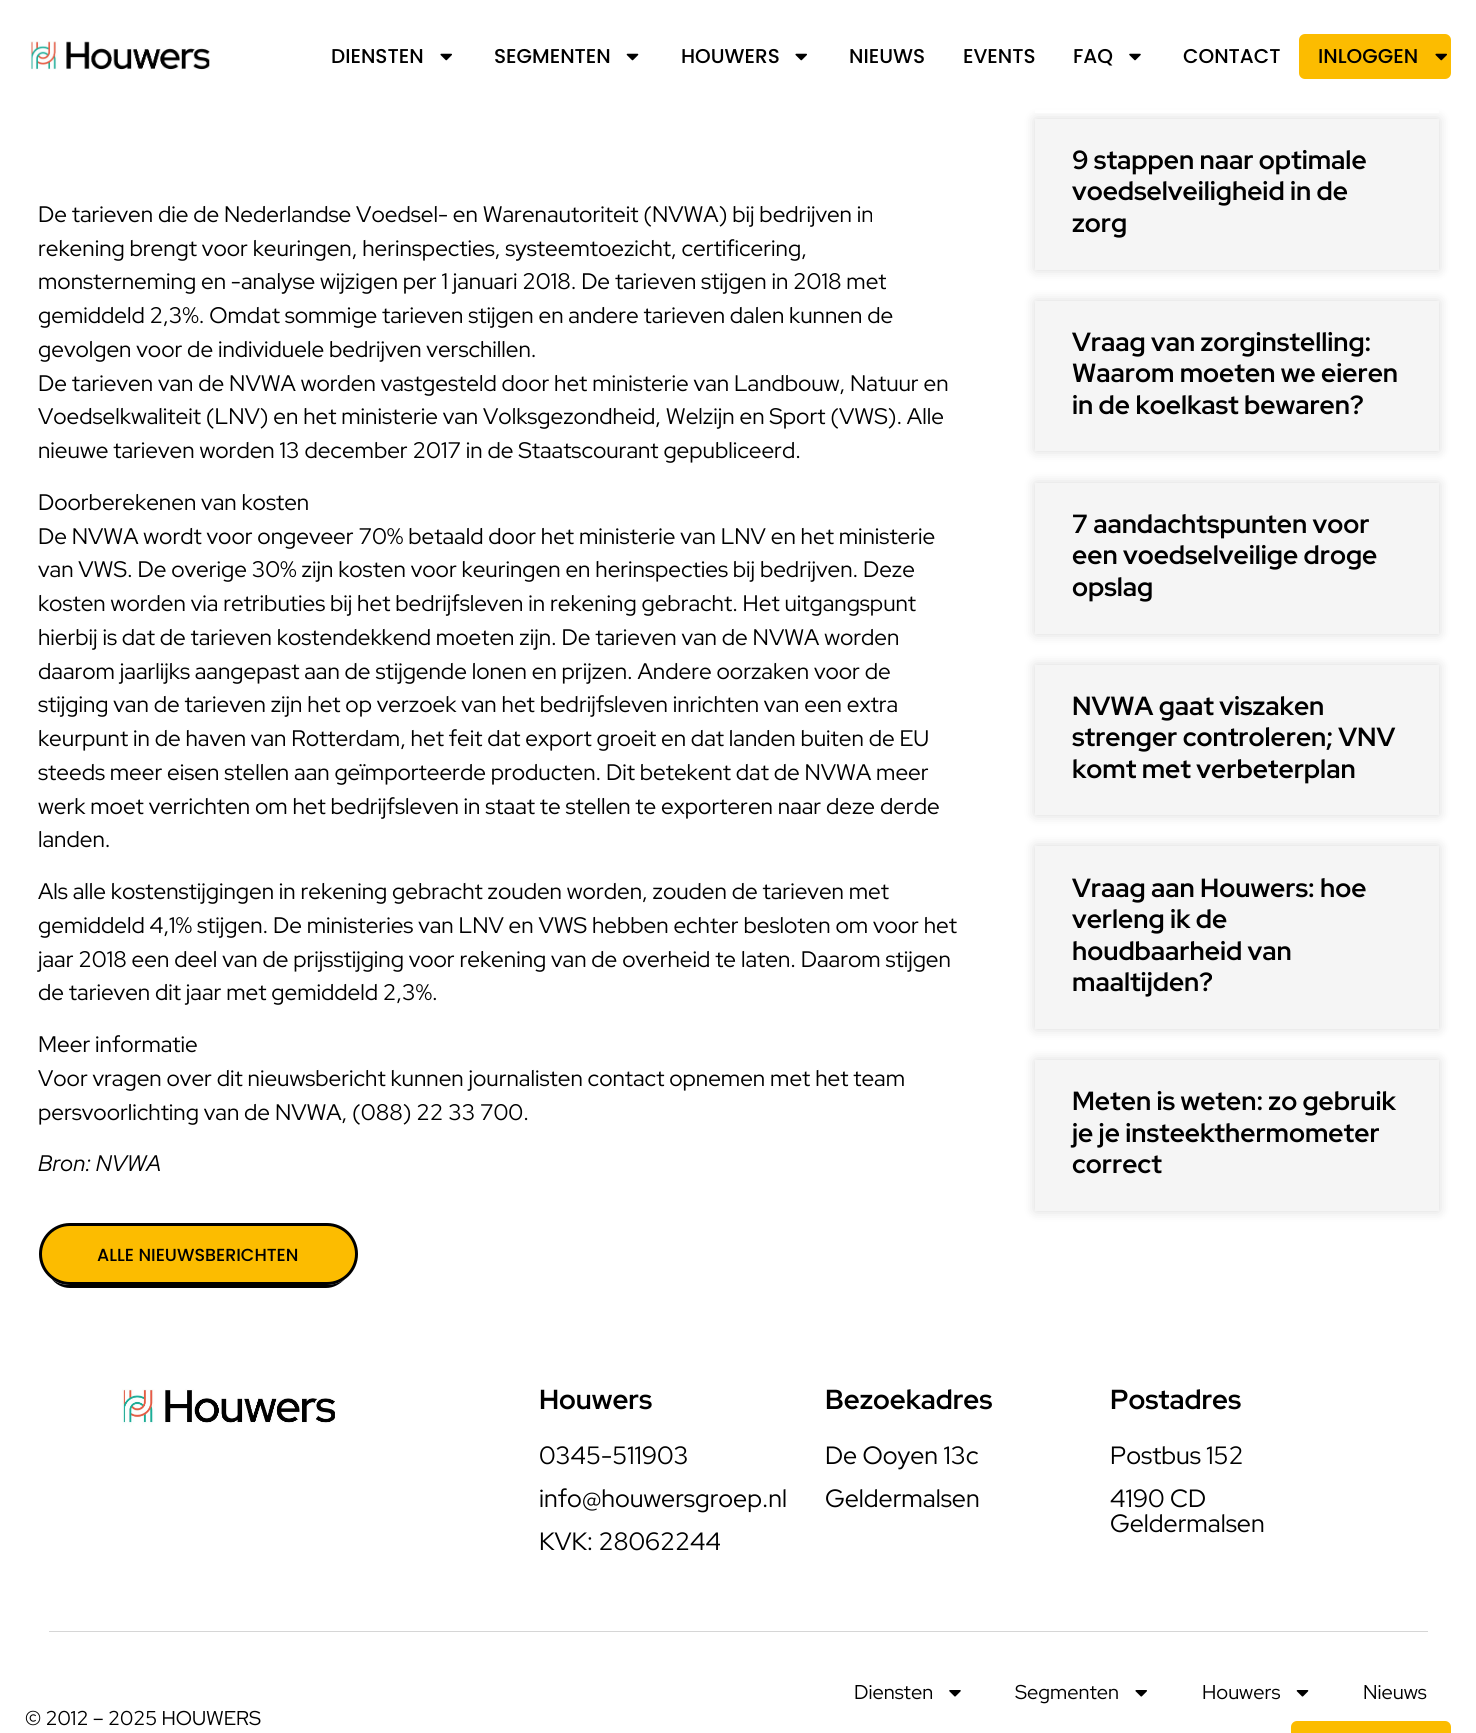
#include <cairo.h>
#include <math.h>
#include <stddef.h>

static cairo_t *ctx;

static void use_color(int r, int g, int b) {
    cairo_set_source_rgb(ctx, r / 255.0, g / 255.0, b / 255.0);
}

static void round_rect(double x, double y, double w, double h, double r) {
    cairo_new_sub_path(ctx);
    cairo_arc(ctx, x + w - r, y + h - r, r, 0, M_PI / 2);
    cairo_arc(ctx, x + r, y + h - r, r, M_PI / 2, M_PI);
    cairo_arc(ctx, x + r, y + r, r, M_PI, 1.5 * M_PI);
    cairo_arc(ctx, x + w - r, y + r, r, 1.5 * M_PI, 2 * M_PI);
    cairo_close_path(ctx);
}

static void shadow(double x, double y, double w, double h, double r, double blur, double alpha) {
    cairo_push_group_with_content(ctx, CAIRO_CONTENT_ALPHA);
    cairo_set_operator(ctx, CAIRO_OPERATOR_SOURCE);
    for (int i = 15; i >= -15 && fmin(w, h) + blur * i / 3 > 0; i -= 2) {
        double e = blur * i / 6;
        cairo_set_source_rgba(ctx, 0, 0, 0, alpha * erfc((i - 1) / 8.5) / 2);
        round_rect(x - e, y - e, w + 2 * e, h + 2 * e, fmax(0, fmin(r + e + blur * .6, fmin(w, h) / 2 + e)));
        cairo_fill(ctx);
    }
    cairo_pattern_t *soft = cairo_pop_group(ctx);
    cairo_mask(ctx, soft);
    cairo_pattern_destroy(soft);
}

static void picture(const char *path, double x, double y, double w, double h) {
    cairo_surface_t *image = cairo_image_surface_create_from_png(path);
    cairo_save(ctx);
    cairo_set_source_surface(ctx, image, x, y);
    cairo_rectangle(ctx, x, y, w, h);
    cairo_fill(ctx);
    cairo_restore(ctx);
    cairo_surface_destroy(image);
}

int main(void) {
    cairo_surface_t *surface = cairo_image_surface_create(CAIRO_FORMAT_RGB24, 1476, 1733);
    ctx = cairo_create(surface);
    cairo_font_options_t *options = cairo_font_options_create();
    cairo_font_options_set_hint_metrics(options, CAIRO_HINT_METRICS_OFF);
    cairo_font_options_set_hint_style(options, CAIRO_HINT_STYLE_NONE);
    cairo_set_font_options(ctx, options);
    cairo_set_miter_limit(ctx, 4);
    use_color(255, 255, 255);
    cairo_paint(ctx);
    use_color(0, 0, 0);
    shadow(1035, 119, 404, 151, 0, 6, 0.15);
    use_color(255, 255, 255);
    cairo_rectangle(ctx, 1035, 110, 404, 3);
    cairo_fill(ctx);
    picture("img1.png", 30, 41, 180, 29);
    cairo_select_font_face(ctx, "Poppins Medium", CAIRO_FONT_SLANT_NORMAL, CAIRO_FONT_WEIGHT_NORMAL);
    cairo_set_font_size(ctx, 20);
    use_color(0, 0, 0);
    cairo_move_to(ctx, 331, 63);
    cairo_show_text(ctx, "DIENSTEN");
    picture("img2.png", 440, 53, 12, 8);
    cairo_move_to(ctx, 494, 63);
    cairo_show_text(ctx, "SEGMENTEN");
    picture("img3.png", 626, 53, 13, 8);
    cairo_move_to(ctx, 681, 63);
    cairo_show_text(ctx, "HOUWERS");
    picture("img2.png", 795, 53, 12, 8);
    cairo_move_to(ctx, 849, 63);
    cairo_show_text(ctx, "NIEUWS");
    cairo_move_to(ctx, 963, 63);
    cairo_show_text(ctx, "EVENTS");
    cairo_move_to(ctx, 1073, 63);
    cairo_show_text(ctx, "FAQ");
    picture("img4.png", 1129, 53, 12, 8);
    cairo_move_to(ctx, 1183, 63);
    cairo_show_text(ctx, "CONTACT");
    use_color(252, 188, 0);
    round_rect(1299, 34, 152, 45, 6);
    cairo_fill(ctx);
    use_color(0, 0, 0);
    cairo_move_to(ctx, 1318, 63);
    cairo_show_text(ctx, "INLOGGEN");
    picture("img5.png", 1435, 53, 12, 8);
    cairo_select_font_face(ctx, "Red Hat Display", CAIRO_FONT_SLANT_NORMAL, CAIRO_FONT_WEIGHT_NORMAL);
    cairo_set_font_size(ctx, 22.5);
    cairo_move_to(ctx, 38, 222);
    cairo_show_text(ctx, "De tarieven die de Nederlandse Voedsel- en Warenautoriteit (NVWA) bij bedrijven in");
    cairo_move_to(ctx, 38, 256);
    cairo_show_text(ctx, "rekening brengt voor keuringen, herinspecties, systeemtoezicht, certificering,");
    cairo_move_to(ctx, 38, 289);
    cairo_show_text(ctx, "monsterneming en -analyse wijzigen per 1 januari 2018. De tarieven stijgen in 2018 met");
    cairo_move_to(ctx, 38, 323);
    cairo_show_text(ctx, "gemiddeld 2,3%. Omdat sommige tarieven stijgen en andere tarieven dalen kunnen de");
    cairo_move_to(ctx, 38, 357);
    cairo_show_text(ctx, "gevolgen voor de individuele bedrijven verschillen.");
    cairo_move_to(ctx, 38, 391);
    cairo_show_text(ctx, "De tarieven van de NVWA worden vastgesteld door het ministerie van Landbouw, Natuur en");
    cairo_move_to(ctx, 38, 424);
    cairo_show_text(ctx, "Voedselkwaliteit (LNV) en het ministerie van Volksgezondheid, Welzijn en Sport (VWS). Alle");
    cairo_move_to(ctx, 38, 458);
    cairo_show_text(ctx, "nieuwe tarieven worden 13 december 2017 in de Staatscourant gepubliceerd.");
    cairo_move_to(ctx, 38, 510);
    cairo_show_text(ctx, "Doorberekenen van kosten");
    cairo_move_to(ctx, 38, 544);
    cairo_show_text(ctx, "De NVWA wordt voor ongeveer 70% betaald door het ministerie van LNV en het ministerie");
    cairo_move_to(ctx, 38, 577);
    cairo_show_text(ctx, "van VWS. De overige 30% zijn kosten voor keuringen en herinspecties bij bedrijven. Deze");
    cairo_move_to(ctx, 38, 611);
    cairo_show_text(ctx, "kosten worden via retributies bij het bedrijfsleven in rekening gebracht. Het uitgangspunt");
    cairo_move_to(ctx, 38, 645);
    cairo_show_text(ctx, "hierbij is dat de tarieven kostendekkend moeten zijn. De tarieven van de NVWA worden");
    cairo_move_to(ctx, 38, 679);
    cairo_show_text(ctx, "daarom jaarlijks aangepast aan de stijgende lonen en prijzen. Andere oorzaken voor de");
    cairo_move_to(ctx, 38, 712);
    cairo_show_text(ctx, "stijging van de tarieven zijn het op verzoek van het bedrijfsleven inrichten van een extra");
    cairo_move_to(ctx, 38, 746);
    cairo_show_text(ctx, "keurpunt in de haven van Rotterdam, het feit dat export groeit en dat landen buiten de EU");
    cairo_move_to(ctx, 38, 780);
    cairo_show_text(ctx, "steeds meer eisen stellen aan geïmporteerde producten. Dit betekent dat de NVWA meer");
    cairo_move_to(ctx, 38, 814);
    cairo_show_text(ctx, "werk moet verrichten om het bedrijfsleven in staat te stellen te exporteren naar deze derde");
    cairo_move_to(ctx, 38, 847);
    cairo_show_text(ctx, "landen.");
    cairo_move_to(ctx, 38, 899);
    cairo_show_text(ctx, "Als alle kostenstijgingen in rekening gebracht zouden worden, zouden de tarieven met");
    cairo_move_to(ctx, 38, 933);
    cairo_show_text(ctx, "gemiddeld 4,1% stijgen. De ministeries van LNV en VWS hebben echter besloten om voor het");
    cairo_move_to(ctx, 38, 967);
    cairo_show_text(ctx, "jaar 2018 een deel van de prijsstijging voor rekening van de overheid te laten. Daarom stijgen");
    cairo_move_to(ctx, 38, 1000);
    cairo_show_text(ctx, "de tarieven dit jaar met gemiddeld 2,3%.");
    cairo_move_to(ctx, 38, 1052);
    cairo_show_text(ctx, "Meer informatie");
    cairo_move_to(ctx, 38, 1086);
    cairo_show_text(ctx, "Voor vragen over dit nieuwsbericht kunnen journalisten contact opnemen met het team");
    cairo_move_to(ctx, 38, 1120);
    cairo_show_text(ctx, "persvoorlichting van de NVWA, (088) 22 33 700.");
    cairo_select_font_face(ctx, "Red Hat Display", CAIRO_FONT_SLANT_ITALIC, CAIRO_FONT_WEIGHT_NORMAL);
    cairo_move_to(ctx, 38, 1171);
    cairo_show_text(ctx, "Bron: NVWA");
    cairo_new_path(ctx);
    cairo_move_to(ctx, 51, 1278);
    cairo_curve_to(ctx, 55, 1284, 62, 1288, 70, 1288);
    cairo_line_to(ctx, 326, 1288);
    cairo_curve_to(ctx, 334, 1288, 340, 1284, 345, 1279);
    cairo_curve_to(ctx, 340, 1283, 333, 1285, 326, 1285);
    cairo_line_to(ctx, 70, 1285);
    cairo_curve_to(ctx, 63, 1285, 56, 1283, 51, 1278);
    cairo_close_path(ctx);
    cairo_fill(ctx);
    use_color(252, 188, 0);
    round_rect(40.5, 1224.5, 316, 59, 29.5);
    cairo_fill_preserve(ctx);
    use_color(0, 0, 0);
    cairo_set_line_width(ctx, 3);
    cairo_stroke(ctx);
    cairo_select_font_face(ctx, "Poppins Medium", CAIRO_FONT_SLANT_NORMAL, CAIRO_FONT_WEIGHT_NORMAL);
    cairo_set_font_size(ctx, 17.5);
    cairo_move_to(ctx, 97, 1261);
    cairo_show_text(ctx, "ALLE NIEUWSBERICHTEN");
    use_color(245, 245, 245);
    cairo_rectangle(ctx, 1035, 119, 404, 151);
    cairo_fill(ctx);
    cairo_select_font_face(ctx, "Red Hat Display", CAIRO_FONT_SLANT_NORMAL, CAIRO_FONT_WEIGHT_BOLD);
    cairo_set_font_size(ctx, 26.25);
    use_color(0, 0, 0);
    cairo_move_to(ctx, 1072, 169);
    cairo_show_text(ctx, "9 stappen naar optimale");
    cairo_move_to(ctx, 1072, 200);
    cairo_show_text(ctx, "voedselveiligheid in de");
    cairo_move_to(ctx, 1072, 232);
    cairo_show_text(ctx, "zorg");
    use_color(0, 0, 0);
    shadow(1035, 301, 404, 150, 0, 6, 0.15);
    use_color(245, 245, 245);
    cairo_rectangle(ctx, 1035, 301, 404, 150);
    cairo_fill(ctx);
    use_color(0, 0, 0);
    cairo_move_to(ctx, 1072, 351);
    cairo_show_text(ctx, "Vraag van zorginstelling:");
    cairo_move_to(ctx, 1072, 382);
    cairo_show_text(ctx, "Waarom moeten we eieren");
    cairo_move_to(ctx, 1072, 414);
    cairo_show_text(ctx, "in de koelkast bewaren?");
    use_color(0, 0, 0);
    shadow(1035, 483, 404, 151, 0, 6, 0.15);
    use_color(245, 245, 245);
    cairo_rectangle(ctx, 1035, 483, 404, 151);
    cairo_fill(ctx);
    use_color(0, 0, 0);
    cairo_move_to(ctx, 1072, 533);
    cairo_show_text(ctx, "7 aandachtspunten voor");
    cairo_move_to(ctx, 1072, 564);
    cairo_show_text(ctx, "een voedselveilige droge");
    cairo_move_to(ctx, 1072, 596);
    cairo_show_text(ctx, "opslag");
    use_color(0, 0, 0);
    shadow(1035, 665, 404, 150, 0, 6, 0.15);
    use_color(245, 245, 245);
    cairo_rectangle(ctx, 1035, 665, 404, 150);
    cairo_fill(ctx);
    use_color(0, 0, 0);
    cairo_move_to(ctx, 1072, 715);
    cairo_show_text(ctx, "NVWA gaat viszaken");
    cairo_move_to(ctx, 1072, 746);
    cairo_show_text(ctx, "strenger controleren; VNV");
    cairo_move_to(ctx, 1072, 778);
    cairo_show_text(ctx, "komt met verbeterplan");
    use_color(0, 0, 0);
    shadow(1035, 846, 404, 183, 0, 6, 0.15);
    use_color(245, 245, 245);
    cairo_rectangle(ctx, 1035, 846, 404, 183);
    cairo_fill(ctx);
    use_color(0, 0, 0);
    cairo_move_to(ctx, 1072, 897);
    cairo_show_text(ctx, "Vraag aan Houwers: hoe");
    cairo_move_to(ctx, 1072, 928);
    cairo_show_text(ctx, "verleng ik de");
    cairo_move_to(ctx, 1072, 960);
    cairo_show_text(ctx, "houdbaarheid van");
    cairo_move_to(ctx, 1072, 991);
    cairo_show_text(ctx, "maaltijden?");
    use_color(0, 0, 0);
    shadow(1035, 1060, 404, 151, 0, 6, 0.15);
    use_color(245, 245, 245);
    cairo_rectangle(ctx, 1035, 1060, 404, 151);
    cairo_fill(ctx);
    use_color(0, 0, 0);
    cairo_move_to(ctx, 1072, 1110);
    cairo_show_text(ctx, "Meten is weten: zo gebruik");
    cairo_move_to(ctx, 1072, 1142);
    cairo_show_text(ctx, "je je insteekthermometer");
    cairo_move_to(ctx, 1072, 1173);
    cairo_show_text(ctx, "correct");
    picture("img6.png", 122, 1389, 213, 37);
    cairo_set_font_size(ctx, 27.5);
    cairo_move_to(ctx, 539, 1409);
    cairo_show_text(ctx, "Houwers");
    cairo_select_font_face(ctx, "Red Hat Display", CAIRO_FONT_SLANT_NORMAL, CAIRO_FONT_WEIGHT_NORMAL);
    cairo_set_font_size(ctx, 25);
    cairo_move_to(ctx, 539, 1464);
    cairo_show_text(ctx, "0345-511903");
    cairo_move_to(ctx, 539, 1507);
    cairo_show_text(ctx, "info@houwersgroep.nl");
    cairo_move_to(ctx, 539, 1550);
    cairo_show_text(ctx, "KVK: 28062244");
    cairo_select_font_face(ctx, "Red Hat Display", CAIRO_FONT_SLANT_NORMAL, CAIRO_FONT_WEIGHT_BOLD);
    cairo_set_font_size(ctx, 27.5);
    cairo_move_to(ctx, 825, 1409);
    cairo_show_text(ctx, "Bezoekadres");
    cairo_select_font_face(ctx, "Red Hat Display", CAIRO_FONT_SLANT_NORMAL, CAIRO_FONT_WEIGHT_NORMAL);
    cairo_set_font_size(ctx, 25);
    cairo_move_to(ctx, 825, 1464);
    cairo_show_text(ctx, "De Ooyen 13c");
    cairo_move_to(ctx, 825, 1507);
    cairo_show_text(ctx, "Geldermalsen");
    cairo_select_font_face(ctx, "Red Hat Display", CAIRO_FONT_SLANT_NORMAL, CAIRO_FONT_WEIGHT_BOLD);
    cairo_set_font_size(ctx, 27.5);
    cairo_move_to(ctx, 1110, 1409);
    cairo_show_text(ctx, "Postadres");
    cairo_select_font_face(ctx, "Red Hat Display", CAIRO_FONT_SLANT_NORMAL, CAIRO_FONT_WEIGHT_NORMAL);
    cairo_set_font_size(ctx, 25);
    cairo_move_to(ctx, 1110, 1464);
    cairo_show_text(ctx, "Postbus 152");
    cairo_move_to(ctx, 1110, 1507);
    cairo_show_text(ctx, "4190 CD");
    cairo_move_to(ctx, 1110, 1532);
    cairo_show_text(ctx, "Geldermalsen");
    use_color(214, 214, 214);
    cairo_rectangle(ctx, 49, 1631, 1379, 1);
    cairo_fill(ctx);
    cairo_set_font_size(ctx, 20);
    use_color(0, 0, 0);
    cairo_move_to(ctx, 854, 1699);
    cairo_show_text(ctx, "Diensten");
    picture("img7.png", 949, 1690, 12, 7);
    cairo_move_to(ctx, 1015, 1699);
    cairo_show_text(ctx, "Segmenten");
    picture("img8.png", 1135, 1690, 12, 7);
    cairo_move_to(ctx, 1202, 1699);
    cairo_show_text(ctx, "Houwers");
    picture("img9.png", 1296, 1690, 13, 7);
    cairo_move_to(ctx, 1363, 1699);
    cairo_show_text(ctx, "Nieuws");
    use_color(252, 188, 0);
    round_rect(1291, 1721, 160, 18, 6);
    cairo_fill(ctx);
    use_color(0, 0, 0);
    cairo_move_to(ctx, 25, 1725);
    cairo_show_text(ctx, "© 2012 – 2025 HOUWERS");
    cairo_surface_write_to_png(surface, "result.png");
    cairo_font_options_destroy(options);
    cairo_destroy(ctx);
    cairo_surface_destroy(surface);
    return 0;
}
